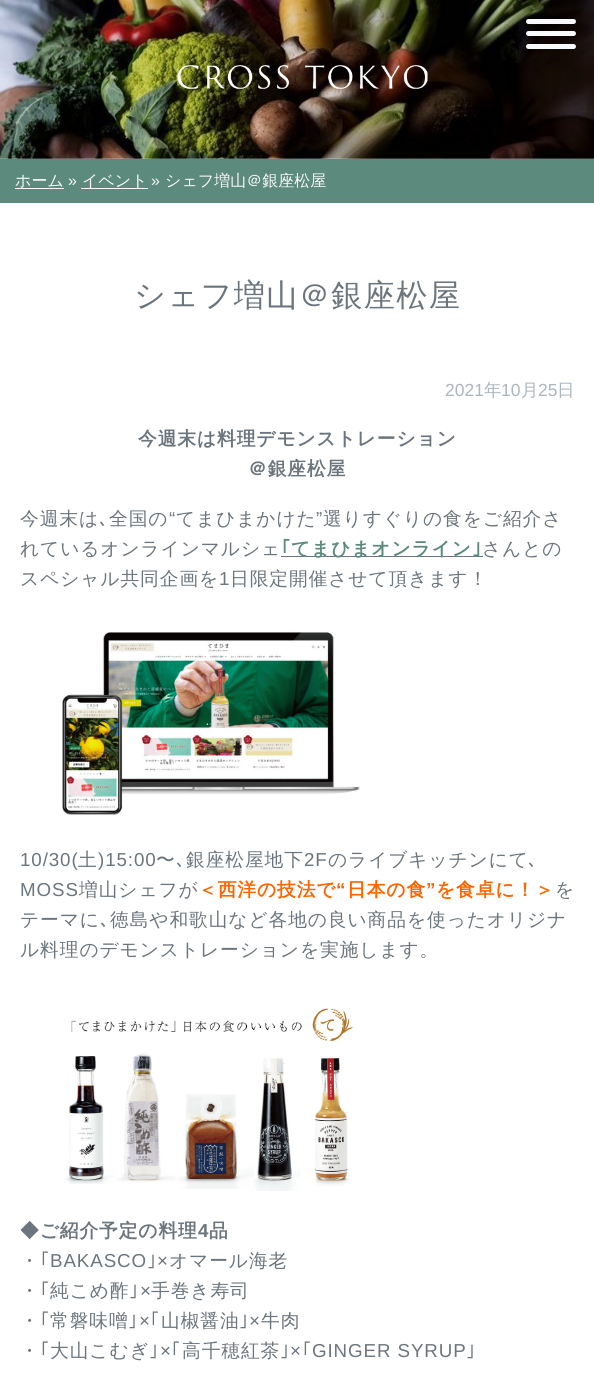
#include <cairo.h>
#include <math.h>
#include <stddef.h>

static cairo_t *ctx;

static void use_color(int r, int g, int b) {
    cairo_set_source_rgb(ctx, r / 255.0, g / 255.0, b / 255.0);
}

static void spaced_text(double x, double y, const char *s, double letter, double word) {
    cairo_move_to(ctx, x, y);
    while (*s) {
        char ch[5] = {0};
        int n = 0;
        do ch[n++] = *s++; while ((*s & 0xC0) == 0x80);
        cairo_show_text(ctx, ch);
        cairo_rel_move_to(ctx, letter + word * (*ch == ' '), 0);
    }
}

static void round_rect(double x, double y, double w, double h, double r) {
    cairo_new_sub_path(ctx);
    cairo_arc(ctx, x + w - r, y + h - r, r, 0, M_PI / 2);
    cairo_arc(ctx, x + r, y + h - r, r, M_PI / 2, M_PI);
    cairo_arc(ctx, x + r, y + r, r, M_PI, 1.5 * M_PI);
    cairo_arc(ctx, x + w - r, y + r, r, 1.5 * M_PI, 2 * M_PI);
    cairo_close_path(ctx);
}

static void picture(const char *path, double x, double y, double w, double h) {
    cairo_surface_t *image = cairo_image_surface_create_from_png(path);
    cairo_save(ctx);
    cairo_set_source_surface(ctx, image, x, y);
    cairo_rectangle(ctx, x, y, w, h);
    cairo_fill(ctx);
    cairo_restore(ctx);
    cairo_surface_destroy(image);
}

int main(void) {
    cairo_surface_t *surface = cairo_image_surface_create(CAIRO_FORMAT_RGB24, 594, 1375);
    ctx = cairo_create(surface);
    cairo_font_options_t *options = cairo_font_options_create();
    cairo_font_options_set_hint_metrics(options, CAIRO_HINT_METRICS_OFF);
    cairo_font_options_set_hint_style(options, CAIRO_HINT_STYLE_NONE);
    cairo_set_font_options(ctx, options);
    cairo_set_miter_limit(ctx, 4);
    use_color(255, 255, 255);
    cairo_paint(ctx);
    picture("img1.png", 0, 0, 594, 159);
    picture("img2.png", 177, 65, 251, 24);
    use_color(248, 249, 250);
    round_rect(526, 44, 50, 5, 2.5);
    cairo_fill(ctx);
    round_rect(526, 19, 50, 5, 2.5);
    cairo_fill(ctx);
    round_rect(526, 31, 50, 5, 2.5);
    cairo_fill(ctx);
    use_color(92, 138, 125);
    cairo_rectangle(ctx, 0, 159, 594, 44);
    cairo_fill(ctx);
    cairo_select_font_face(ctx, "WenQuanYi Zen Hei Medium", CAIRO_FONT_SLANT_NORMAL, CAIRO_FONT_WEIGHT_NORMAL);
    cairo_set_font_size(ctx, 16);
    use_color(248, 249, 250);
    cairo_move_to(ctx, 15, 186);
    cairo_show_text(ctx, "ホーム");
    cairo_rectangle(ctx, 15, 188, 49, 1);
    cairo_fill(ctx);
    cairo_select_font_face(ctx, "Liberation Sans", CAIRO_FONT_SLANT_NORMAL, CAIRO_FONT_WEIGHT_NORMAL);
    cairo_move_to(ctx, 68, 186);
    cairo_show_text(ctx, "»");
    cairo_rectangle(ctx, 81, 188, 67, 1);
    cairo_fill(ctx);
    cairo_select_font_face(ctx, "WenQuanYi Zen Hei Medium", CAIRO_FONT_SLANT_NORMAL, CAIRO_FONT_WEIGHT_NORMAL);
    cairo_move_to(ctx, 82, 186);
    cairo_show_text(ctx, "イベント");
    cairo_select_font_face(ctx, "Liberation Sans", CAIRO_FONT_SLANT_NORMAL, CAIRO_FONT_WEIGHT_NORMAL);
    cairo_move_to(ctx, 151, 186);
    cairo_show_text(ctx, "»");
    cairo_select_font_face(ctx, "WenQuanYi Zen Hei Medium", CAIRO_FONT_SLANT_NORMAL, CAIRO_FONT_WEIGHT_NORMAL);
    cairo_move_to(ctx, 165, 186);
    cairo_show_text(ctx, "シェフ増山＠銀座松屋");
    cairo_set_font_size(ctx, 31.25);
    use_color(108, 117, 125);
    spaced_text(134, 306, "シェフ増山＠銀座松屋", 1.25, 0);
    cairo_select_font_face(ctx, "Liberation Sans", CAIRO_FONT_SLANT_NORMAL, CAIRO_FONT_WEIGHT_NORMAL);
    cairo_set_font_size(ctx, 17.5);
    use_color(173, 181, 189);
    cairo_move_to(ctx, 445, 396);
    cairo_show_text(ctx, "2021");
    cairo_select_font_face(ctx, "WenQuanYi Zen Hei Medium", CAIRO_FONT_SLANT_NORMAL, CAIRO_FONT_WEIGHT_NORMAL);
    cairo_move_to(ctx, 484, 396);
    cairo_show_text(ctx, "年");
    cairo_select_font_face(ctx, "Liberation Sans", CAIRO_FONT_SLANT_NORMAL, CAIRO_FONT_WEIGHT_NORMAL);
    cairo_move_to(ctx, 501, 396);
    cairo_show_text(ctx, "10");
    cairo_select_font_face(ctx, "WenQuanYi Zen Hei Medium", CAIRO_FONT_SLANT_NORMAL, CAIRO_FONT_WEIGHT_NORMAL);
    cairo_move_to(ctx, 521, 396);
    cairo_show_text(ctx, "月");
    cairo_select_font_face(ctx, "Liberation Sans", CAIRO_FONT_SLANT_NORMAL, CAIRO_FONT_WEIGHT_NORMAL);
    cairo_move_to(ctx, 538, 396);
    cairo_show_text(ctx, "25");
    cairo_select_font_face(ctx, "WenQuanYi Zen Hei Medium", CAIRO_FONT_SLANT_NORMAL, CAIRO_FONT_WEIGHT_NORMAL);
    cairo_move_to(ctx, 557, 396);
    cairo_show_text(ctx, "日");
    cairo_select_font_face(ctx, "WenQuanYi Zen Hei", CAIRO_FONT_SLANT_NORMAL, CAIRO_FONT_WEIGHT_BOLD);
    cairo_set_font_size(ctx, 18.75);
    use_color(108, 117, 125);
    spaced_text(138, 445, "今週末は料理デモンストレーション", 0.9, 0);
    spaced_text(248, 475, "＠銀座松屋", 0.9, 0);
    cairo_select_font_face(ctx, "WenQuanYi Zen Hei Medium", CAIRO_FONT_SLANT_NORMAL, CAIRO_FONT_WEIGHT_NORMAL);
    spaced_text(20, 525, "今週末は", 0.9, 0);
    spaced_text(109, 525, "全国の", 0.9, 0);
    cairo_select_font_face(ctx, "Liberation Sans", CAIRO_FONT_SLANT_NORMAL, CAIRO_FONT_WEIGHT_NORMAL);
    spaced_text(169, 525, "“", 0.9, 0);
    cairo_select_font_face(ctx, "WenQuanYi Zen Hei Medium", CAIRO_FONT_SLANT_NORMAL, CAIRO_FONT_WEIGHT_NORMAL);
    spaced_text(176, 525, "てまひまかけた", 0.9, 0);
    cairo_select_font_face(ctx, "Liberation Sans", CAIRO_FONT_SLANT_NORMAL, CAIRO_FONT_WEIGHT_NORMAL);
    spaced_text(316, 525, "”", 0.9, 0);
    cairo_select_font_face(ctx, "WenQuanYi Zen Hei Medium", CAIRO_FONT_SLANT_NORMAL, CAIRO_FONT_WEIGHT_NORMAL);
    spaced_text(323, 525, "選りすぐりの食をご紹介さ", 0.9, 0);
    cairo_select_font_face(ctx, "IPAPGothic", CAIRO_FONT_SLANT_NORMAL, CAIRO_FONT_WEIGHT_NORMAL);
    spaced_text(99, 525, "､", 0.9, 0);
    cairo_select_font_face(ctx, "WenQuanYi Zen Hei Medium", CAIRO_FONT_SLANT_NORMAL, CAIRO_FONT_WEIGHT_NORMAL);
    spaced_text(20, 555, "れているオンラインマルシェ", 0.9, 0);
    cairo_select_font_face(ctx, "IPAPGothic", CAIRO_FONT_SLANT_NORMAL, CAIRO_FONT_WEIGHT_BOLD);
    use_color(92, 138, 125);
    spaced_text(281, 555, "｢", 0.9, 0);
    use_color(108, 117, 125);
    cairo_rectangle(ctx, 281, 556, 202, 1);
    cairo_fill(ctx);
    cairo_select_font_face(ctx, "WenQuanYi Zen Hei", CAIRO_FONT_SLANT_NORMAL, CAIRO_FONT_WEIGHT_BOLD);
    use_color(92, 138, 125);
    spaced_text(291, 555, "てまひまオンライン", 0.9, 0);
    cairo_select_font_face(ctx, "IPAPGothic", CAIRO_FONT_SLANT_NORMAL, CAIRO_FONT_WEIGHT_BOLD);
    spaced_text(472, 555, "｣", 0.9, 0);
    cairo_select_font_face(ctx, "WenQuanYi Zen Hei Medium", CAIRO_FONT_SLANT_NORMAL, CAIRO_FONT_WEIGHT_NORMAL);
    use_color(108, 117, 125);
    spaced_text(482, 555, "さんとの", 0.9, 0);
    spaced_text(20, 585, "スペシャル共同企画を", 0.9, 0);
    cairo_select_font_face(ctx, "Liberation Sans", CAIRO_FONT_SLANT_NORMAL, CAIRO_FONT_WEIGHT_NORMAL);
    spaced_text(219, 585, "1", 0.9, 0);
    cairo_select_font_face(ctx, "WenQuanYi Zen Hei Medium", CAIRO_FONT_SLANT_NORMAL, CAIRO_FONT_WEIGHT_NORMAL);
    spaced_text(230, 585, "日限定開催させて頂きます！", 0.9, 0);
    picture("img3.png", 62, 632, 298, 183);
    cairo_select_font_face(ctx, "Liberation Sans", CAIRO_FONT_SLANT_NORMAL, CAIRO_FONT_WEIGHT_NORMAL);
    spaced_text(20, 866, "10/30(", 0.9, 0);
    cairo_select_font_face(ctx, "WenQuanYi Zen Hei Medium", CAIRO_FONT_SLANT_NORMAL, CAIRO_FONT_WEIGHT_NORMAL);
    spaced_text(78, 866, "土", 0.9, 0);
    cairo_select_font_face(ctx, "Liberation Sans", CAIRO_FONT_SLANT_NORMAL, CAIRO_FONT_WEIGHT_NORMAL);
    spaced_text(98, 866, ")15:00", 0.9, 0);
    cairo_select_font_face(ctx, "WenQuanYi Zen Hei Medium", CAIRO_FONT_SLANT_NORMAL, CAIRO_FONT_WEIGHT_NORMAL);
    spaced_text(156, 866, "〜", 0.9, 0);
    spaced_text(186, 866, "銀座松屋地下", 0.9, 0);
    cairo_select_font_face(ctx, "Liberation Sans", CAIRO_FONT_SLANT_NORMAL, CAIRO_FONT_WEIGHT_NORMAL);
    spaced_text(304, 866, "2F", 0.9, 0);
    cairo_select_font_face(ctx, "WenQuanYi Zen Hei Medium", CAIRO_FONT_SLANT_NORMAL, CAIRO_FONT_WEIGHT_NORMAL);
    spaced_text(328, 866, "のライブキッチンにて", 0.9, 0);
    cairo_select_font_face(ctx, "IPAPGothic", CAIRO_FONT_SLANT_NORMAL, CAIRO_FONT_WEIGHT_NORMAL);
    spaced_text(176, 866, "､", 0.9, 0);
    spaced_text(528, 866, "､", 0.9, 0);
    cairo_select_font_face(ctx, "Liberation Sans", CAIRO_FONT_SLANT_NORMAL, CAIRO_FONT_WEIGHT_NORMAL);
    spaced_text(20, 896, "MOSS", 0.9, 0);
    cairo_select_font_face(ctx, "WenQuanYi Zen Hei Medium", CAIRO_FONT_SLANT_NORMAL, CAIRO_FONT_WEIGHT_NORMAL);
    spaced_text(79, 896, "増山シェフが", 0.9, 0);
    cairo_select_font_face(ctx, "WenQuanYi Zen Hei", CAIRO_FONT_SLANT_NORMAL, CAIRO_FONT_WEIGHT_BOLD);
    use_color(255, 102, 0);
    spaced_text(198, 896, "＜西洋の技法で", 0.9, 0);
    cairo_select_font_face(ctx, "Liberation Sans", CAIRO_FONT_SLANT_NORMAL, CAIRO_FONT_WEIGHT_BOLD);
    spaced_text(336, 896, "“", 0.9, 0);
    cairo_select_font_face(ctx, "WenQuanYi Zen Hei", CAIRO_FONT_SLANT_NORMAL, CAIRO_FONT_WEIGHT_BOLD);
    spaced_text(347, 896, "日本の食", 0.9, 0);
    cairo_select_font_face(ctx, "Liberation Sans", CAIRO_FONT_SLANT_NORMAL, CAIRO_FONT_WEIGHT_BOLD);
    spaced_text(426, 896, "”", 0.9, 0);
    cairo_select_font_face(ctx, "WenQuanYi Zen Hei", CAIRO_FONT_SLANT_NORMAL, CAIRO_FONT_WEIGHT_BOLD);
    spaced_text(436, 896, "を食卓に！＞", 0.9, 0);
    cairo_select_font_face(ctx, "WenQuanYi Zen Hei Medium", CAIRO_FONT_SLANT_NORMAL, CAIRO_FONT_WEIGHT_NORMAL);
    use_color(108, 117, 125);
    spaced_text(555, 896, "を", 0.9, 0);
    spaced_text(20, 926, "テーマに", 0.9, 0);
    cairo_select_font_face(ctx, "IPAPGothic", CAIRO_FONT_SLANT_NORMAL, CAIRO_FONT_WEIGHT_NORMAL);
    spaced_text(100, 926, "､", 0.9, 0);
    cairo_select_font_face(ctx, "WenQuanYi Zen Hei Medium", CAIRO_FONT_SLANT_NORMAL, CAIRO_FONT_WEIGHT_NORMAL);
    spaced_text(110, 926, "徳島や和歌山など各地の良い商品を使ったオリジナ", 0.9, 0);
    spaced_text(20, 956, "ル料理のデモンストレーションを実施します。", 0.9, 0);
    picture("img4.png", 64, 1008, 289, 183);
    cairo_select_font_face(ctx, "WenQuanYi Zen Hei", CAIRO_FONT_SLANT_NORMAL, CAIRO_FONT_WEIGHT_BOLD);
    spaced_text(20, 1237, "◆ご紹介予定の料理", 0.9, 0);
    cairo_select_font_face(ctx, "Liberation Sans", CAIRO_FONT_SLANT_NORMAL, CAIRO_FONT_WEIGHT_BOLD);
    spaced_text(198, 1237, "4", 0.9, 0);
    cairo_select_font_face(ctx, "WenQuanYi Zen Hei", CAIRO_FONT_SLANT_NORMAL, CAIRO_FONT_WEIGHT_BOLD);
    spaced_text(209, 1237, "品", 0.9, 0);
    cairo_select_font_face(ctx, "WenQuanYi Zen Hei Medium", CAIRO_FONT_SLANT_NORMAL, CAIRO_FONT_WEIGHT_NORMAL);
    spaced_text(20, 1267, "・", 0.9, 0);
    cairo_select_font_face(ctx, "IPAPGothic", CAIRO_FONT_SLANT_NORMAL, CAIRO_FONT_WEIGHT_NORMAL);
    spaced_text(40, 1267, "｢", 0.9, 0);
    cairo_select_font_face(ctx, "Liberation Sans", CAIRO_FONT_SLANT_NORMAL, CAIRO_FONT_WEIGHT_NORMAL);
    spaced_text(50, 1267, "BAKASCO", 0.9, 0);
    cairo_select_font_face(ctx, "IPAPGothic", CAIRO_FONT_SLANT_NORMAL, CAIRO_FONT_WEIGHT_NORMAL);
    spaced_text(147, 1267, "｣", 0.9, 0);
    cairo_select_font_face(ctx, "Liberation Sans", CAIRO_FONT_SLANT_NORMAL, CAIRO_FONT_WEIGHT_NORMAL);
    spaced_text(157, 1267, "×", 0.9, 0);
    cairo_select_font_face(ctx, "WenQuanYi Zen Hei Medium", CAIRO_FONT_SLANT_NORMAL, CAIRO_FONT_WEIGHT_NORMAL);
    spaced_text(169, 1267, "オマール海老", 0.9, 0);
    spaced_text(20, 1297, "・", 0.9, 0);
    cairo_select_font_face(ctx, "IPAPGothic", CAIRO_FONT_SLANT_NORMAL, CAIRO_FONT_WEIGHT_NORMAL);
    spaced_text(40, 1297, "｢", 0.9, 0);
    cairo_select_font_face(ctx, "WenQuanYi Zen Hei Medium", CAIRO_FONT_SLANT_NORMAL, CAIRO_FONT_WEIGHT_NORMAL);
    spaced_text(50, 1297, "純こめ酢", 0.9, 0);
    cairo_select_font_face(ctx, "IPAPGothic", CAIRO_FONT_SLANT_NORMAL, CAIRO_FONT_WEIGHT_NORMAL);
    spaced_text(129, 1297, "｣", 0.9, 0);
    cairo_select_font_face(ctx, "Liberation Sans", CAIRO_FONT_SLANT_NORMAL, CAIRO_FONT_WEIGHT_NORMAL);
    spaced_text(140, 1297, "×", 0.9, 0);
    cairo_select_font_face(ctx, "WenQuanYi Zen Hei Medium", CAIRO_FONT_SLANT_NORMAL, CAIRO_FONT_WEIGHT_NORMAL);
    spaced_text(151, 1297, "手巻き寿司", 0.9, 0);
    spaced_text(20, 1327, "・", 0.9, 0);
    cairo_select_font_face(ctx, "IPAPGothic", CAIRO_FONT_SLANT_NORMAL, CAIRO_FONT_WEIGHT_NORMAL);
    spaced_text(40, 1327, "｢", 0.9, 0);
    cairo_select_font_face(ctx, "WenQuanYi Zen Hei Medium", CAIRO_FONT_SLANT_NORMAL, CAIRO_FONT_WEIGHT_NORMAL);
    spaced_text(50, 1327, "常磐味噌", 0.9, 0);
    cairo_select_font_face(ctx, "IPAPGothic", CAIRO_FONT_SLANT_NORMAL, CAIRO_FONT_WEIGHT_NORMAL);
    spaced_text(128, 1327, "｣", 0.9, 0);
    cairo_select_font_face(ctx, "Liberation Sans", CAIRO_FONT_SLANT_NORMAL, CAIRO_FONT_WEIGHT_NORMAL);
    spaced_text(139, 1327, "×", 0.9, 0);
    cairo_select_font_face(ctx, "IPAPGothic", CAIRO_FONT_SLANT_NORMAL, CAIRO_FONT_WEIGHT_NORMAL);
    spaced_text(150, 1327, "｢", 0.9, 0);
    cairo_select_font_face(ctx, "WenQuanYi Zen Hei Medium", CAIRO_FONT_SLANT_NORMAL, CAIRO_FONT_WEIGHT_NORMAL);
    spaced_text(161, 1327, "山椒醤油", 0.9, 0);
    cairo_select_font_face(ctx, "IPAPGothic", CAIRO_FONT_SLANT_NORMAL, CAIRO_FONT_WEIGHT_NORMAL);
    spaced_text(239, 1327, "｣", 0.9, 0);
    cairo_select_font_face(ctx, "Liberation Sans", CAIRO_FONT_SLANT_NORMAL, CAIRO_FONT_WEIGHT_NORMAL);
    spaced_text(249, 1327, "×", 0.9, 0);
    cairo_select_font_face(ctx, "WenQuanYi Zen Hei Medium", CAIRO_FONT_SLANT_NORMAL, CAIRO_FONT_WEIGHT_NORMAL);
    spaced_text(261, 1327, "牛肉", 0.9, 0);
    spaced_text(20, 1357, "・", 0.9, 0);
    cairo_select_font_face(ctx, "IPAPGothic", CAIRO_FONT_SLANT_NORMAL, CAIRO_FONT_WEIGHT_NORMAL);
    spaced_text(40, 1357, "｢", 0.9, 0);
    cairo_select_font_face(ctx, "WenQuanYi Zen Hei Medium", CAIRO_FONT_SLANT_NORMAL, CAIRO_FONT_WEIGHT_NORMAL);
    spaced_text(50, 1357, "大山こむぎ", 0.9, 0);
    cairo_select_font_face(ctx, "IPAPGothic", CAIRO_FONT_SLANT_NORMAL, CAIRO_FONT_WEIGHT_NORMAL);
    spaced_text(149, 1357, "｣", 0.9, 0);
    cairo_select_font_face(ctx, "Liberation Sans", CAIRO_FONT_SLANT_NORMAL, CAIRO_FONT_WEIGHT_NORMAL);
    spaced_text(160, 1357, "×", 0.9, 0);
    cairo_select_font_face(ctx, "IPAPGothic", CAIRO_FONT_SLANT_NORMAL, CAIRO_FONT_WEIGHT_NORMAL);
    spaced_text(171, 1357, "｢", 0.9, 0);
    cairo_select_font_face(ctx, "WenQuanYi Zen Hei Medium", CAIRO_FONT_SLANT_NORMAL, CAIRO_FONT_WEIGHT_NORMAL);
    spaced_text(182, 1357, "高千穂紅茶", 0.9, 0);
    cairo_select_font_face(ctx, "IPAPGothic", CAIRO_FONT_SLANT_NORMAL, CAIRO_FONT_WEIGHT_NORMAL);
    spaced_text(280, 1357, "｣", 0.9, 0);
    cairo_select_font_face(ctx, "Liberation Sans", CAIRO_FONT_SLANT_NORMAL, CAIRO_FONT_WEIGHT_NORMAL);
    spaced_text(290, 1357, "×", 0.9, 0);
    cairo_select_font_face(ctx, "IPAPGothic", CAIRO_FONT_SLANT_NORMAL, CAIRO_FONT_WEIGHT_NORMAL);
    spaced_text(302, 1357, "｢", 0.9, 0);
    cairo_select_font_face(ctx, "Liberation Sans", CAIRO_FONT_SLANT_NORMAL, CAIRO_FONT_WEIGHT_NORMAL);
    spaced_text(312, 1357, "GINGER SYRUP", 0.9, 0);
    cairo_select_font_face(ctx, "IPAPGothic", CAIRO_FONT_SLANT_NORMAL, CAIRO_FONT_WEIGHT_NORMAL);
    spaced_text(466, 1357, "｣", 0.9, 0);
    cairo_surface_write_to_png(surface, "result.png");
    cairo_font_options_destroy(options);
    cairo_destroy(ctx);
    cairo_surface_destroy(surface);
    return 0;
}
